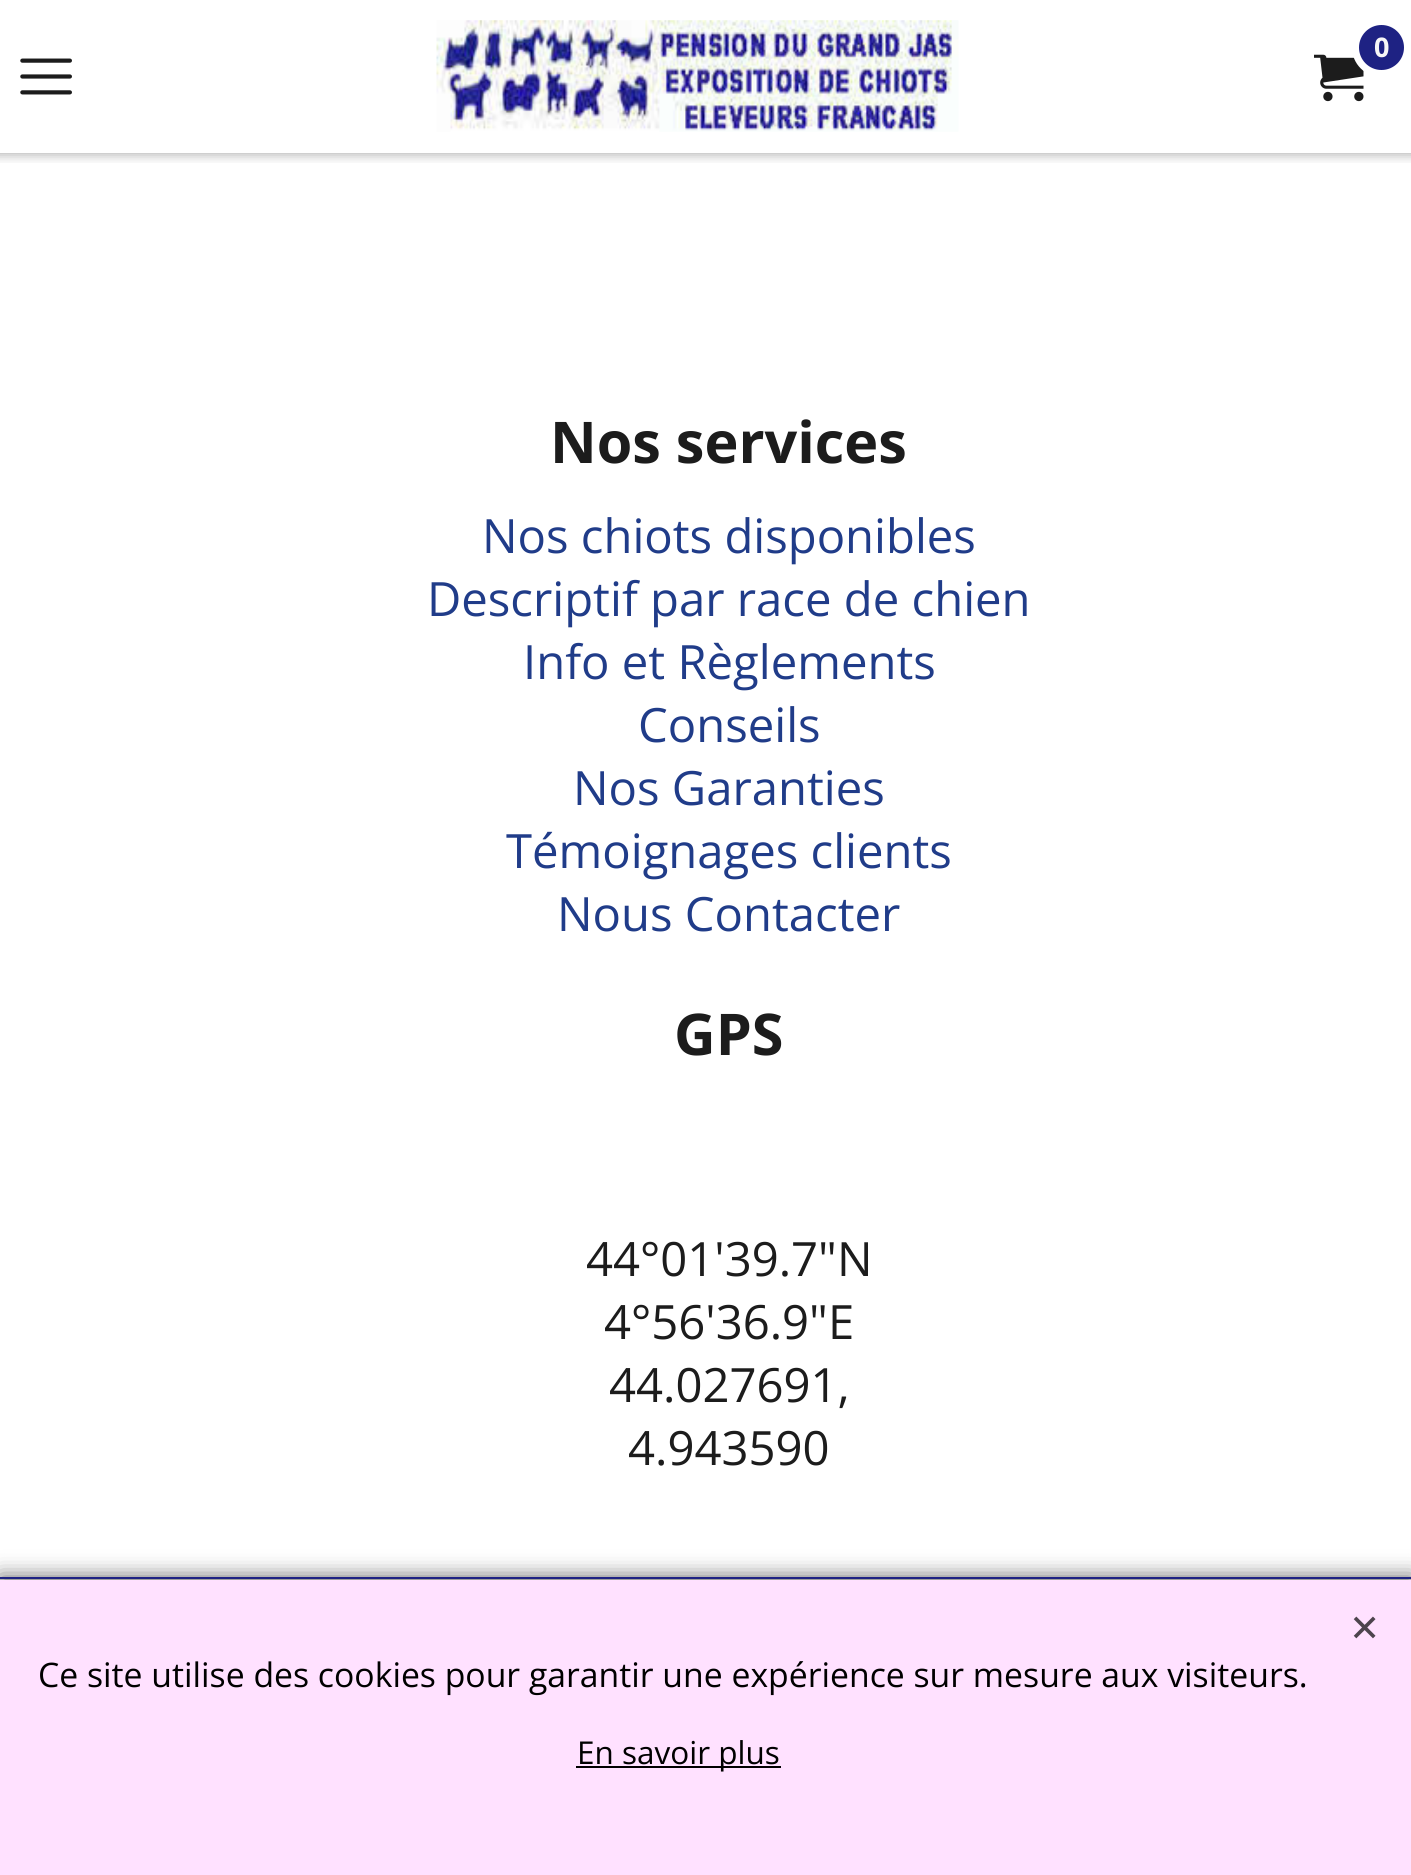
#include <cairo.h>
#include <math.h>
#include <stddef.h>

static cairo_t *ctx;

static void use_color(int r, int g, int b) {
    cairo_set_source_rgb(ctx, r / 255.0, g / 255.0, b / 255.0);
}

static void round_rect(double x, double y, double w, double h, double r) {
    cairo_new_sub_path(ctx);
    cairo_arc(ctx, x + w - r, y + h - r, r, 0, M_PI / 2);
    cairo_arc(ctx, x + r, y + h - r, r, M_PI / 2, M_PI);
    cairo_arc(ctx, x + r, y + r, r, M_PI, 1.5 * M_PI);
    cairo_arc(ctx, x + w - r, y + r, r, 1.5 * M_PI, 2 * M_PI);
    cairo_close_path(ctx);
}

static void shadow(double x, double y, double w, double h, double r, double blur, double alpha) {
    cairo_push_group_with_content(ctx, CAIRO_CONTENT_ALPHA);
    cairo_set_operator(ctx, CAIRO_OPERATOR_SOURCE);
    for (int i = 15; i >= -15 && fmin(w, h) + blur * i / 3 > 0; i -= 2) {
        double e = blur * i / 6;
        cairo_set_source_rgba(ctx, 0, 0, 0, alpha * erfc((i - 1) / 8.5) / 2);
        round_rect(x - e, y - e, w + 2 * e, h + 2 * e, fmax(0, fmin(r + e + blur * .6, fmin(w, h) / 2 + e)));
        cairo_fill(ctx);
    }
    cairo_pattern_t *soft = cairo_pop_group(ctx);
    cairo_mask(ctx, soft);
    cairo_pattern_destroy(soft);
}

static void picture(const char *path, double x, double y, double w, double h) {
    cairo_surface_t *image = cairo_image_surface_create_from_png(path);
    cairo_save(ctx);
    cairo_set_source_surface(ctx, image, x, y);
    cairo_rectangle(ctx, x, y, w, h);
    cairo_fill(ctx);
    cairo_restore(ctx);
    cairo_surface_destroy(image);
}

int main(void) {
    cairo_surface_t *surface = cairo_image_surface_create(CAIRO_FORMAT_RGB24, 1411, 1875);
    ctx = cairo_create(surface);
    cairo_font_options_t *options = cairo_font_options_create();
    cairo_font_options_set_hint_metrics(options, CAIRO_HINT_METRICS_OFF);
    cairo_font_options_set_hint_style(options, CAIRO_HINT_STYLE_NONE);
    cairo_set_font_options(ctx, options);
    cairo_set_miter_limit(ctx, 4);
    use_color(255, 255, 255);
    cairo_paint(ctx);
    cairo_save(ctx);
    cairo_rectangle(ctx, 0, 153, 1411, 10);
    cairo_clip(ctx);
    use_color(0, 0, 0);
    shadow(-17, -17, 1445, 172, 0, 5.5, 0.3);
    cairo_restore(ctx);
    picture("img1.png", 436, 20, 523, 112);
    picture("img2.png", 1314, 54, 50, 48);
    use_color(30, 34, 131);
    cairo_arc(ctx, 1381.5, 47.5, 26, 0, 2 * M_PI);
    cairo_fill_preserve(ctx);
    use_color(255, 255, 255);
    cairo_set_line_width(ctx, 7);
    cairo_stroke(ctx);
    cairo_select_font_face(ctx, "Open Sans", CAIRO_FONT_SLANT_NORMAL, CAIRO_FONT_WEIGHT_BOLD);
    cairo_set_font_size(ctx, 27);
    use_color(247, 247, 247);
    cairo_move_to(ctx, 1374, 57);
    cairo_show_text(ctx, "0");
    picture("img3.png", 20, 58, 52, 37);
    cairo_set_font_size(ctx, 57.5);
    use_color(28, 28, 28);
    cairo_move_to(ctx, 550, 463);
    cairo_show_text(ctx, "Nos services");
    cairo_select_font_face(ctx, "Open Sans", CAIRO_FONT_SLANT_NORMAL, CAIRO_FONT_WEIGHT_NORMAL);
    cairo_set_font_size(ctx, 47.25);
    use_color(32, 60, 137);
    cairo_move_to(ctx, 482, 553);
    cairo_show_text(ctx, "Nos chiots disponibles");
    cairo_move_to(ctx, 427, 616);
    cairo_show_text(ctx, "Descriptif par race de chien");
    cairo_move_to(ctx, 523, 679);
    cairo_show_text(ctx, "Info et Règlements");
    cairo_move_to(ctx, 638, 742);
    cairo_show_text(ctx, "Conseils");
    cairo_move_to(ctx, 573, 805);
    cairo_show_text(ctx, "Nos Garanties");
    cairo_move_to(ctx, 506, 868);
    cairo_show_text(ctx, "Témoignages clients");
    cairo_move_to(ctx, 557, 931);
    cairo_show_text(ctx, "Nous Contacter");
    cairo_select_font_face(ctx, "Open Sans", CAIRO_FONT_SLANT_NORMAL, CAIRO_FONT_WEIGHT_BOLD);
    cairo_set_font_size(ctx, 57.5);
    use_color(28, 28, 28);
    cairo_move_to(ctx, 674, 1055);
    cairo_show_text(ctx, "GPS");
    cairo_select_font_face(ctx, "Open Sans", CAIRO_FONT_SLANT_NORMAL, CAIRO_FONT_WEIGHT_NORMAL);
    cairo_set_font_size(ctx, 47.25);
    cairo_move_to(ctx, 586, 1276);
    cairo_show_text(ctx, "44°01'39.7\"N");
    cairo_move_to(ctx, 604, 1339);
    cairo_show_text(ctx, "4°56'36.9\"E");
    cairo_move_to(ctx, 609, 1402);
    cairo_show_text(ctx, "44.027691,");
    cairo_move_to(ctx, 628, 1465);
    cairo_show_text(ctx, "4.943590");
    use_color(102, 102, 102);
    shadow(0, 1577, 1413, 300, 0, 11, 1);
    use_color(255, 225, 255);
    cairo_rectangle(ctx, 0, 1580, 1411, 295);
    cairo_fill(ctx);
    use_color(30, 34, 131);
    cairo_rectangle(ctx, 0, 1577, 1411, 2);
    cairo_fill(ctx);
    picture("img4.png", 1353, 1616, 23, 23);
    cairo_set_font_size(ctx, 33.75);
    use_color(0, 0, 0);
    cairo_move_to(ctx, 38, 1687);
    cairo_show_text(ctx, "Ce site utilise des cookies pour garantir une expérience sur mesure aux visiteurs.");
    cairo_rectangle(ctx, 576, 1766, 205, 2);
    cairo_fill(ctx);
    cairo_set_font_size(ctx, 31.5);
    cairo_move_to(ctx, 577, 1764);
    cairo_show_text(ctx, "En savoir plus");
    cairo_surface_write_to_png(surface, "result.png");
    cairo_font_options_destroy(options);
    cairo_destroy(ctx);
    cairo_surface_destroy(surface);
    return 0;
}
